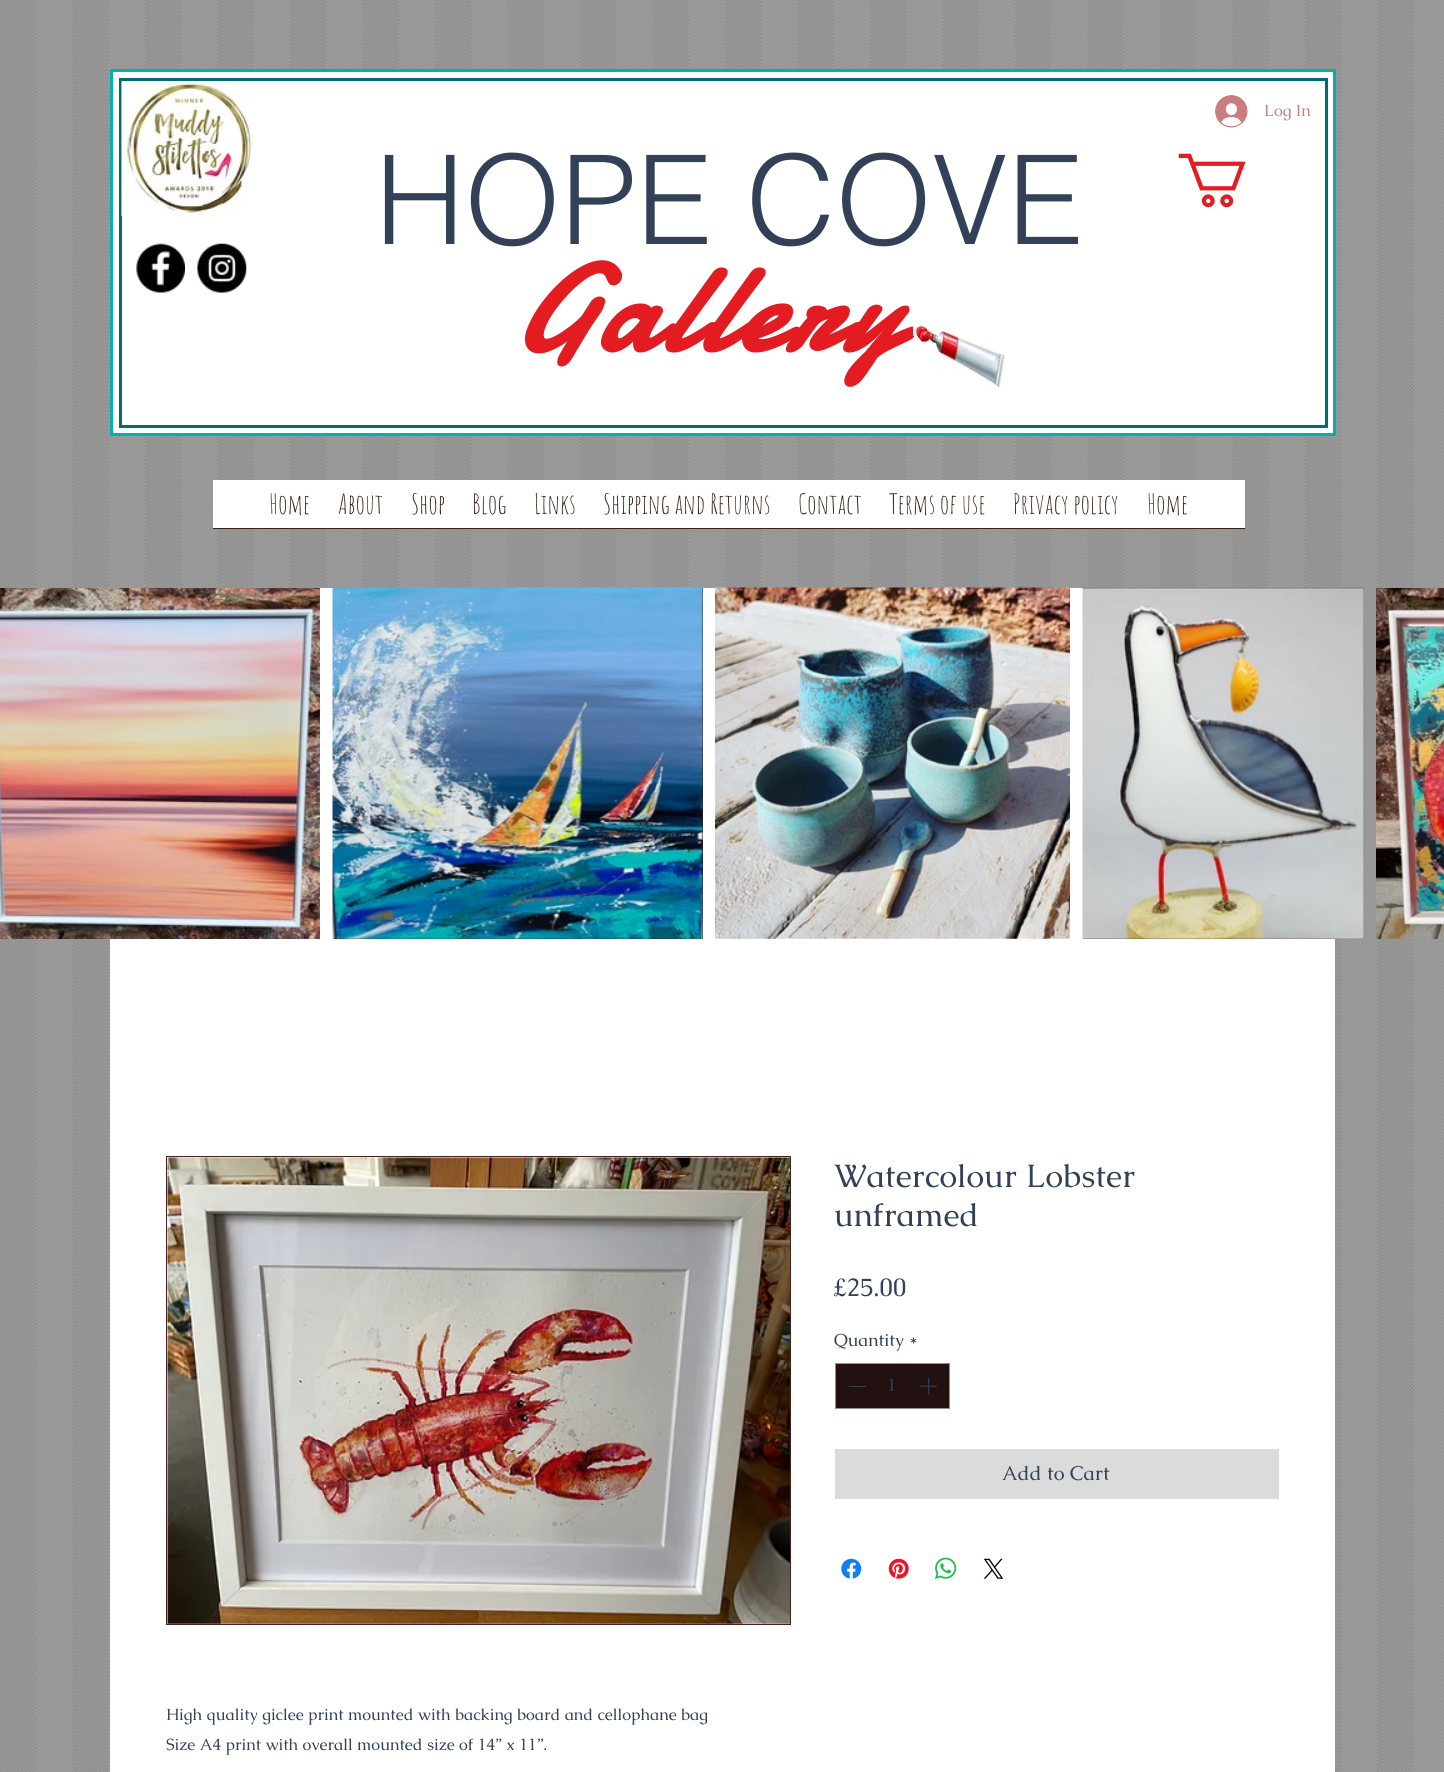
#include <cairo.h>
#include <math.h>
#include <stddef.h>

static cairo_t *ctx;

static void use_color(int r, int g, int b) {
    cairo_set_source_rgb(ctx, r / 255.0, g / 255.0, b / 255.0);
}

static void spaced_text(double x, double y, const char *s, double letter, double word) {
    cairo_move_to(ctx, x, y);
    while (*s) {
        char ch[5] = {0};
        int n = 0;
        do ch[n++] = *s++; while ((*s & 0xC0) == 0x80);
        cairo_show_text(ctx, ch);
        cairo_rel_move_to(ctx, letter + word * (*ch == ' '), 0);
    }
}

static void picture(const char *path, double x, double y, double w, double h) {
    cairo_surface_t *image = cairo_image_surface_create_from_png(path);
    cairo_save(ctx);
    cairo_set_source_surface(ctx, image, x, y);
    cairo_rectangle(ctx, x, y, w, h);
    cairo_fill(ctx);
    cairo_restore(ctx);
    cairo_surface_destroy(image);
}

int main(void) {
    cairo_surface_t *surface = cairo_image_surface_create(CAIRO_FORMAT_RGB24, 1444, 1772);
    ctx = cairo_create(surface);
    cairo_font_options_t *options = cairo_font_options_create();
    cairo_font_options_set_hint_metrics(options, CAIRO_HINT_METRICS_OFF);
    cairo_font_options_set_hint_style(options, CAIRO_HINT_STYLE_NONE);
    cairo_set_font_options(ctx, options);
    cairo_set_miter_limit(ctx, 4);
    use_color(167, 167, 167);
    cairo_paint(ctx);
    picture("img1.png", 0, 0, 1444, 1772);
    use_color(255, 255, 255);
    cairo_rectangle(ctx, 111.5, 70.5, 1223, 364);
    cairo_fill_preserve(ctx);
    use_color(1, 177, 175);
    cairo_set_line_width(ctx, 3);
    cairo_stroke(ctx);
    cairo_rectangle(ctx, 120.5, 79.5, 1206, 347);
    use_color(0, 108, 109);
    cairo_stroke(ctx);
    picture("img2.png", 121, 81, 131, 136);
    picture("img3.png", 1215, 95, 33, 33);
    cairo_select_font_face(ctx, "Caudex", CAIRO_FONT_SLANT_NORMAL, CAIRO_FONT_WEIGHT_NORMAL);
    cairo_set_font_size(ctx, 16.25);
    use_color(201, 125, 125);
    cairo_move_to(ctx, 1264, 116);
    cairo_show_text(ctx, "Log In");
    cairo_select_font_face(ctx, "helvetica Light", CAIRO_FONT_SLANT_NORMAL, CAIRO_FONT_WEIGHT_NORMAL);
    cairo_set_font_size(ctx, 123.75);
    use_color(50, 65, 88);
    cairo_move_to(ctx, 375, 244);
    cairo_show_text(ctx, "HOPE COVE");
    picture("img4.png", 1178, 153, 68, 55);
    picture("img5.png", 136, 243, 49, 50);
    picture("img6.png", 197, 243, 50, 50);
    cairo_select_font_face(ctx, "Damion", CAIRO_FONT_SLANT_ITALIC, CAIRO_FONT_WEIGHT_BOLD);
    use_color(226, 28, 33);
    spaced_text(508, 351, "Gallery", 6.25, 0);
    picture("img7.png", 913, 320, 93, 68);
    use_color(255, 255, 255);
    cairo_rectangle(ctx, 213, 480, 1032, 48);
    cairo_fill(ctx);
    use_color(52, 34, 22);
    cairo_rectangle(ctx, 213, 528, 1032, 1);
    cairo_fill(ctx);
    cairo_select_font_face(ctx, "Amatic SC", CAIRO_FONT_SLANT_NORMAL, CAIRO_FONT_WEIGHT_NORMAL);
    cairo_set_font_size(ctx, 27.5);
    cairo_move_to(ctx, 269, 514);
    cairo_show_text(ctx, "Home");
    cairo_move_to(ctx, 338, 514);
    cairo_show_text(ctx, "About");
    cairo_move_to(ctx, 411, 514);
    cairo_show_text(ctx, "Shop");
    cairo_move_to(ctx, 472, 514);
    cairo_show_text(ctx, "Blog");
    cairo_move_to(ctx, 534, 514);
    cairo_show_text(ctx, "Links");
    cairo_move_to(ctx, 603, 514);
    cairo_show_text(ctx, "Shipping and Returns");
    cairo_move_to(ctx, 798, 514);
    cairo_show_text(ctx, "Contact");
    cairo_move_to(ctx, 889, 514);
    cairo_show_text(ctx, "Terms of use");
    cairo_move_to(ctx, 1013, 514);
    cairo_show_text(ctx, "Privacy policy");
    cairo_move_to(ctx, 1147, 514);
    cairo_show_text(ctx, "Home");
    use_color(255, 255, 255);
    cairo_rectangle(ctx, 110, 588, 1225, 1184);
    cairo_fill(ctx);
    picture("img8.png", 0, 588, 320, 351);
    use_color(69, 34, 34);
    cairo_rectangle(ctx, 333, 588, 370, 351);
    cairo_fill(ctx);
    picture("img9.png", 332, 587, 371, 352);
    picture("img10.png", 715, 587, 355, 352);
    cairo_rectangle(ctx, 1083, 588, 281, 351);
    cairo_fill(ctx);
    picture("img11.png", 1082, 587, 282, 352);
    picture("img12.png", 1376, 588, 68, 351);
    cairo_select_font_face(ctx, "Caudex", CAIRO_FONT_SLANT_NORMAL, CAIRO_FONT_WEIGHT_NORMAL);
    cairo_set_font_size(ctx, 32.5);
    use_color(50, 65, 88);
    cairo_move_to(ctx, 834, 1187);
    cairo_show_text(ctx, "Watercolour Lobster");
    cairo_move_to(ctx, 834, 1226);
    cairo_show_text(ctx, "unframed");
    cairo_set_font_size(ctx, 25);
    cairo_move_to(ctx, 834, 1296);
    cairo_show_text(ctx, "£25.00");
    cairo_set_font_size(ctx, 17.5);
    cairo_move_to(ctx, 834, 1346);
    cairo_show_text(ctx, "Quantity");
    cairo_move_to(ctx, 909, 1346);
    cairo_show_text(ctx, "*");
    use_color(35, 17, 17);
    cairo_rectangle(ctx, 835.5, 1363.5, 114, 45);
    cairo_fill_preserve(ctx);
    use_color(153, 141, 141);
    cairo_set_line_width(ctx, 1);
    cairo_stroke(ctx);
    use_color(50, 65, 88);
    cairo_rectangle(ctx, 849, 1386, 17, 1);
    cairo_fill(ctx);
    cairo_move_to(ctx, 887, 1391);
    cairo_show_text(ctx, "1");
    picture("img13.png", 920, 1378, 17, 17);
    use_color(219, 219, 219);
    cairo_rectangle(ctx, 835, 1449, 444, 50);
    cairo_fill(ctx);
    cairo_set_font_size(ctx, 20);
    use_color(50, 65, 88);
    cairo_move_to(ctx, 1002, 1480);
    cairo_show_text(ctx, "Add to Cart");
    picture("img14.png", 841, 1558, 21, 21);
    picture("img15.png", 888, 1558, 21, 21);
    picture("img16.png", 935, 1557, 22, 22);
    picture("img17.png", 983, 1558, 21, 21);
    cairo_rectangle(ctx, 166.5, 1156.5, 624, 468);
    use_color(69, 34, 34);
    cairo_stroke(ctx);
    picture("img18.png", 167, 1157, 623, 467);
    cairo_set_font_size(ctx, 16.25);
    use_color(50, 65, 88);
    cairo_move_to(ctx, 166, 1720);
    cairo_show_text(ctx, "High quality giclee print mounted with backing board and cellophane bag");
    cairo_move_to(ctx, 166, 1750);
    cairo_show_text(ctx, "Size A4 print with overall mounted size of 14” x 11”.");
    cairo_surface_write_to_png(surface, "result.png");
    cairo_font_options_destroy(options);
    cairo_destroy(ctx);
    cairo_surface_destroy(surface);
    return 0;
}
